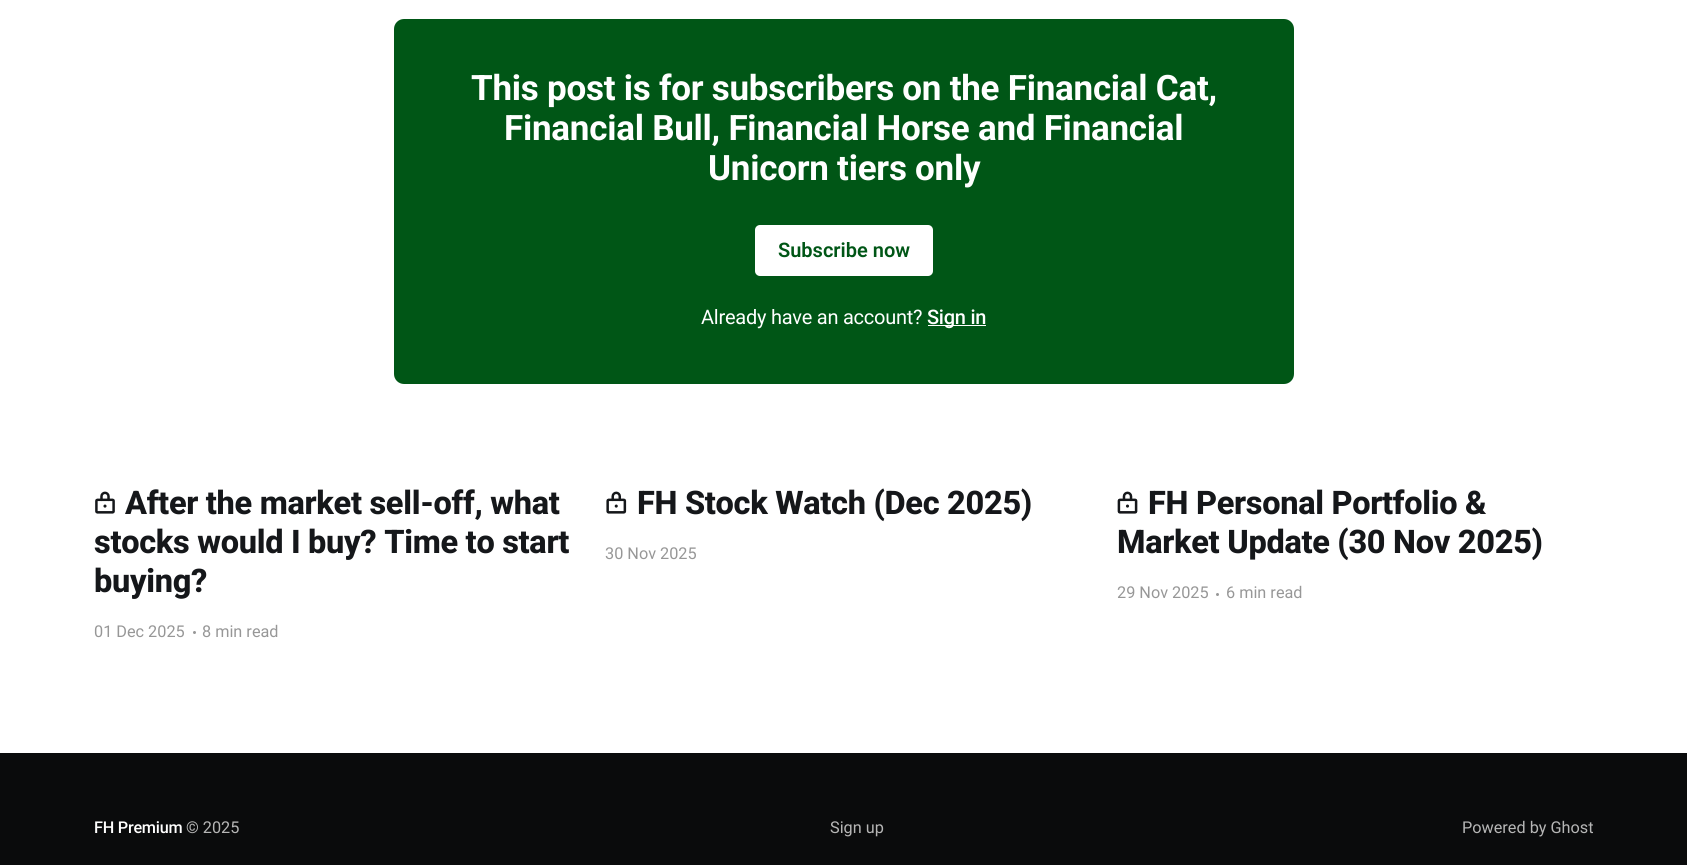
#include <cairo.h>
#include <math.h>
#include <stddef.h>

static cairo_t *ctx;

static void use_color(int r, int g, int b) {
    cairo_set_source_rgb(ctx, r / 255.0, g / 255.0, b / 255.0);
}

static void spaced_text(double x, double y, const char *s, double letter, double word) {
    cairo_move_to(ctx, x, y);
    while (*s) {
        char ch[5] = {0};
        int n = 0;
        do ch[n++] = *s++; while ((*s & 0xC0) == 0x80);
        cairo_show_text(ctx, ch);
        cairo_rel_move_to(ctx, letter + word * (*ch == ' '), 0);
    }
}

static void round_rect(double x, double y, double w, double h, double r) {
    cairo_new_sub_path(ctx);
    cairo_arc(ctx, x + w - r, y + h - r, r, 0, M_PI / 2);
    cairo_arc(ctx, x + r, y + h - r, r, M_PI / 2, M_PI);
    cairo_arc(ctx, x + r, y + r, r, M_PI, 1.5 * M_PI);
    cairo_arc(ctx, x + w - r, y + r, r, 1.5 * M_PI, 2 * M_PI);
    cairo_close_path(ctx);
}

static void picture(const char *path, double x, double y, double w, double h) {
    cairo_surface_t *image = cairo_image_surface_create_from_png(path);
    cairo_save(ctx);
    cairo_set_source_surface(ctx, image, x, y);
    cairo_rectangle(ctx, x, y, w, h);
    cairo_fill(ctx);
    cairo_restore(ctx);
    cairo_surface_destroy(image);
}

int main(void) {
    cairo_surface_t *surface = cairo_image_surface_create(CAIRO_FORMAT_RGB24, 1687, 865);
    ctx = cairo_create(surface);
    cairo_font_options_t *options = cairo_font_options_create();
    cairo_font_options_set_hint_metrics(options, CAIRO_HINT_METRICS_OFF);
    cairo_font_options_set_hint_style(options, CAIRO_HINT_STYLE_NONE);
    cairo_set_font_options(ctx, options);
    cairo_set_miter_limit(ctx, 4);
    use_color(255, 255, 255);
    cairo_paint(ctx);
    use_color(0, 86, 22);
    round_rect(394, 19, 900, 365, 10);
    cairo_fill(ctx);
    cairo_select_font_face(ctx, "Roboto", CAIRO_FONT_SLANT_NORMAL, CAIRO_FONT_WEIGHT_BOLD);
    cairo_set_font_size(ctx, 35);
    use_color(255, 255, 255);
    spaced_text(471, 100, "This post is for subscribers on the Financial Cat,", -0.25, 0);
    spaced_text(504, 140, "Financial Bull, Financial Horse and Financial", -0.25, 0);
    spaced_text(708, 180, "Unicorn tiers only", -0.25, 0);
    round_rect(755, 225, 178, 51, 5);
    cairo_fill(ctx);
    cairo_select_font_face(ctx, "Roboto SemiBold", CAIRO_FONT_SLANT_NORMAL, CAIRO_FONT_WEIGHT_NORMAL);
    cairo_set_font_size(ctx, 20);
    use_color(0, 86, 22);
    cairo_move_to(ctx, 778, 257);
    cairo_show_text(ctx, "Subscribe now");
    cairo_select_font_face(ctx, "Roboto", CAIRO_FONT_SLANT_NORMAL, CAIRO_FONT_WEIGHT_NORMAL);
    use_color(255, 255, 255);
    spaced_text(701, 324, "Already have an account?", -0.25, 0);
    cairo_rectangle(ctx, 928, 325, 58, 1);
    cairo_fill(ctx);
    cairo_select_font_face(ctx, "Roboto Medium", CAIRO_FONT_SLANT_NORMAL, CAIRO_FONT_WEIGHT_NORMAL);
    spaced_text(927, 324, "Sign in", -0.25, 0);
    picture("img1.png", 95, 491, 20, 23);
    cairo_select_font_face(ctx, "Roboto ExtraBold", CAIRO_FONT_SLANT_NORMAL, CAIRO_FONT_WEIGHT_NORMAL);
    cairo_set_font_size(ctx, 32.5);
    use_color(21, 23, 26);
    spaced_text(125, 514, "After the market sell-off, what", -0.3, 0);
    spaced_text(94, 553, "stocks would I buy? Time to start", -0.3, 0);
    spaced_text(94, 592, "buying?", -0.3, 0);
    cairo_select_font_face(ctx, "Roboto", CAIRO_FONT_SLANT_NORMAL, CAIRO_FONT_WEIGHT_NORMAL);
    cairo_set_font_size(ctx, 16.25);
    use_color(151, 151, 151);
    cairo_move_to(ctx, 94, 637);
    cairo_show_text(ctx, "01 Dec 2025");
    cairo_new_path(ctx);
    cairo_arc(ctx, 194.5, 632.5, 1.5, 0, 2 * M_PI);
    cairo_fill(ctx);
    cairo_move_to(ctx, 202, 637);
    cairo_show_text(ctx, "8 min read");
    picture("img2.png", 606, 491, 21, 23);
    cairo_select_font_face(ctx, "Roboto ExtraBold", CAIRO_FONT_SLANT_NORMAL, CAIRO_FONT_WEIGHT_NORMAL);
    cairo_set_font_size(ctx, 32.5);
    use_color(21, 23, 26);
    spaced_text(637, 514, "FH Stock Watch (Dec 2025)", -0.3, 0);
    cairo_select_font_face(ctx, "Roboto", CAIRO_FONT_SLANT_NORMAL, CAIRO_FONT_WEIGHT_NORMAL);
    cairo_set_font_size(ctx, 16.25);
    use_color(151, 151, 151);
    cairo_move_to(ctx, 605, 559);
    cairo_show_text(ctx, "30 Nov 2025");
    picture("img3.png", 1117, 491, 21, 23);
    cairo_select_font_face(ctx, "Roboto ExtraBold", CAIRO_FONT_SLANT_NORMAL, CAIRO_FONT_WEIGHT_NORMAL);
    cairo_set_font_size(ctx, 32.5);
    use_color(21, 23, 26);
    spaced_text(1148, 514, "FH Personal Portfolio &", -0.3, 0);
    spaced_text(1117, 553, "Market Update (30 Nov 2025)", -0.3, 0);
    cairo_select_font_face(ctx, "Roboto", CAIRO_FONT_SLANT_NORMAL, CAIRO_FONT_WEIGHT_NORMAL);
    cairo_set_font_size(ctx, 16.25);
    use_color(151, 151, 151);
    cairo_move_to(ctx, 1117, 598);
    cairo_show_text(ctx, "29 Nov 2025");
    cairo_new_path(ctx);
    cairo_arc(ctx, 1217.5, 594.5, 1.5, 0, 2 * M_PI);
    cairo_fill(ctx);
    cairo_move_to(ctx, 1226, 598);
    cairo_show_text(ctx, "6 min read");
    use_color(10, 11, 12);
    cairo_rectangle(ctx, 0, 753, 1687, 112);
    cairo_fill(ctx);
    cairo_select_font_face(ctx, "Roboto Medium", CAIRO_FONT_SLANT_NORMAL, CAIRO_FONT_WEIGHT_NORMAL);
    use_color(255, 255, 255);
    spaced_text(94, 833, "FH Premium", -0.25, 0);
    cairo_select_font_face(ctx, "Roboto", CAIRO_FONT_SLANT_NORMAL, CAIRO_FONT_WEIGHT_NORMAL);
    use_color(182, 182, 182);
    cairo_move_to(ctx, 186, 833);
    cairo_show_text(ctx, "© 2025");
    cairo_move_to(ctx, 830, 833);
    cairo_show_text(ctx, "Sign up");
    cairo_move_to(ctx, 1462, 833);
    cairo_show_text(ctx, "Powered by Ghost");
    cairo_surface_write_to_png(surface, "result.png");
    cairo_font_options_destroy(options);
    cairo_destroy(ctx);
    cairo_surface_destroy(surface);
    return 0;
}
